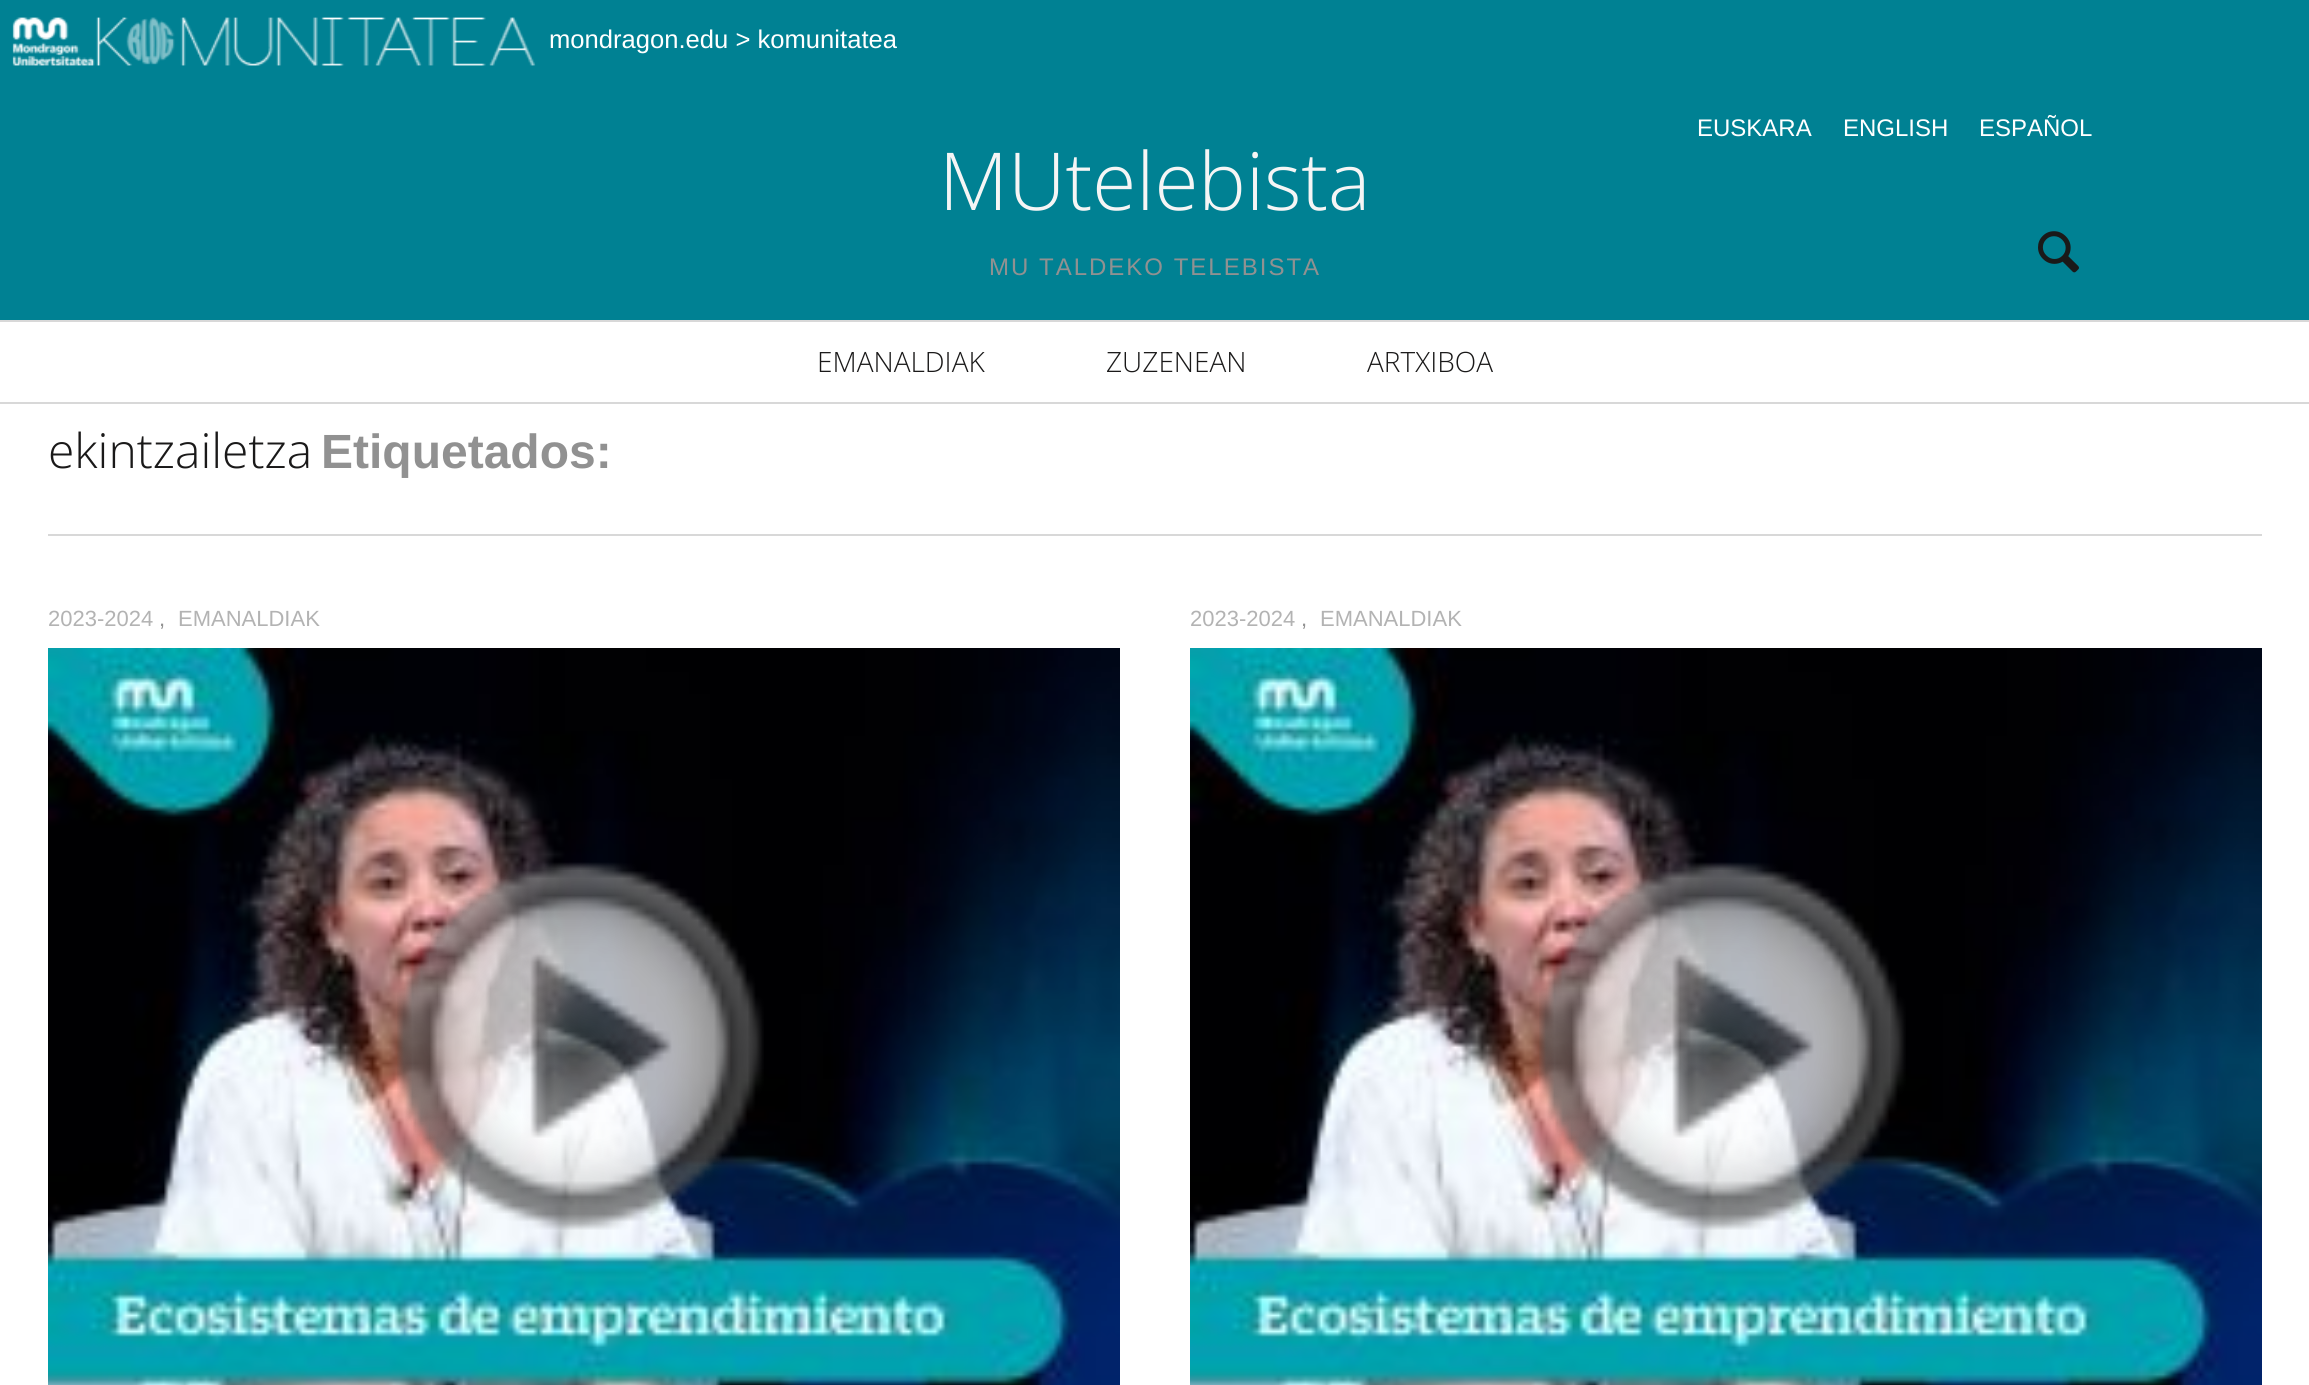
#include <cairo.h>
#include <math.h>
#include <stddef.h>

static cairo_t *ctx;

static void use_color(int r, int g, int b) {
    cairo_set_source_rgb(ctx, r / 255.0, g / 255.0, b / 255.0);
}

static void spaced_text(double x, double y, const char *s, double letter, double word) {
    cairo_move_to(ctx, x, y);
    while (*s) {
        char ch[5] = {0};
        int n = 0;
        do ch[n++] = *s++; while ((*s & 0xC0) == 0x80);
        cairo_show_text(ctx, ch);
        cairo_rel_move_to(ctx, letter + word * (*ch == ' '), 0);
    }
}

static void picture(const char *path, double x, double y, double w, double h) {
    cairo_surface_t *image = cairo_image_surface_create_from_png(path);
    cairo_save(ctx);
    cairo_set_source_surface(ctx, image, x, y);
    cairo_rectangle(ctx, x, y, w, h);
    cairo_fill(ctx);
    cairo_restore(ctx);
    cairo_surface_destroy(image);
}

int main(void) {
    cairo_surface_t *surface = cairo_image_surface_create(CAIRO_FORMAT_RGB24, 2309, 1385);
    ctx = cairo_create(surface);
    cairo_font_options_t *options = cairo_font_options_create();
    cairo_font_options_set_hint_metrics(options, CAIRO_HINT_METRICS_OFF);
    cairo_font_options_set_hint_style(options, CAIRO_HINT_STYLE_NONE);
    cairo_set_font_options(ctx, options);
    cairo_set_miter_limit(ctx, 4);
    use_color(255, 255, 255);
    cairo_paint(ctx);
    use_color(0, 129, 147);
    cairo_rectangle(ctx, 0, 0, 2309, 320);
    cairo_fill(ctx);
    picture("img1.png", 12, 17, 524, 49);
    cairo_select_font_face(ctx, "Liberation Sans", CAIRO_FONT_SLANT_NORMAL, CAIRO_FONT_WEIGHT_NORMAL);
    cairo_set_font_size(ctx, 25.6);
    use_color(255, 255, 255);
    cairo_move_to(ctx, 549, 48);
    cairo_show_text(ctx, "mondragon.edu > komunitatea");
    cairo_set_font_size(ctx, 24);
    cairo_move_to(ctx, 1697, 136);
    cairo_show_text(ctx, "EUSKARA");
    cairo_move_to(ctx, 1843, 136);
    cairo_show_text(ctx, "ENGLISH");
    cairo_move_to(ctx, 1979, 136);
    cairo_show_text(ctx, "ESPAÑOL");
    picture("img2.png", 2038, 231, 41, 42);
    cairo_select_font_face(ctx, "Open Sans Light", CAIRO_FONT_SLANT_NORMAL, CAIRO_FONT_WEIGHT_NORMAL);
    cairo_set_font_size(ctx, 80);
    use_color(245, 245, 245);
    cairo_move_to(ctx, 939, 210);
    cairo_show_text(ctx, "MUtelebista");
    cairo_select_font_face(ctx, "Liberation Sans", CAIRO_FONT_SLANT_NORMAL, CAIRO_FONT_WEIGHT_NORMAL);
    cairo_set_font_size(ctx, 24);
    use_color(145, 145, 145);
    spaced_text(989, 275, "MU TALDEKO TELEBISTA", 2, 0);
    use_color(216, 216, 216);
    cairo_rectangle(ctx, 0, 320, 2309, 2);
    cairo_fill(ctx);
    cairo_rectangle(ctx, 0, 402, 2309, 2);
    cairo_fill(ctx);
    cairo_select_font_face(ctx, "Open Sans Light", CAIRO_FONT_SLANT_NORMAL, CAIRO_FONT_WEIGHT_NORMAL);
    cairo_set_font_size(ctx, 28);
    use_color(26, 25, 25);
    cairo_move_to(ctx, 817, 372);
    cairo_show_text(ctx, "EMANALDIAK");
    cairo_move_to(ctx, 1106, 372);
    cairo_show_text(ctx, "ZUZENEAN");
    cairo_move_to(ctx, 1367, 372);
    cairo_show_text(ctx, "ARTXIBOA");
    cairo_set_font_size(ctx, 48);
    cairo_move_to(ctx, 48, 468);
    cairo_show_text(ctx, "ekintzailetza");
    cairo_select_font_face(ctx, "Liberation Sans", CAIRO_FONT_SLANT_NORMAL, CAIRO_FONT_WEIGHT_BOLD);
    use_color(145, 145, 145);
    cairo_move_to(ctx, 321, 468);
    cairo_show_text(ctx, "Etiquetados:");
    use_color(216, 216, 216);
    cairo_rectangle(ctx, 48, 534, 2214, 2);
    cairo_fill(ctx);
    cairo_select_font_face(ctx, "Liberation Sans", CAIRO_FONT_SLANT_NORMAL, CAIRO_FONT_WEIGHT_NORMAL);
    cairo_set_font_size(ctx, 22);
    use_color(179, 179, 179);
    cairo_move_to(ctx, 48, 626);
    cairo_show_text(ctx, "2023-2024");
    use_color(145, 145, 145);
    cairo_move_to(ctx, 159, 626);
    cairo_show_text(ctx, ",");
    use_color(179, 179, 179);
    cairo_move_to(ctx, 178, 626);
    cairo_show_text(ctx, "EMANALDIAK");
    picture("img3.png", 48, 648, 1072, 737);
    picture("img4.png", 397, 862, 367, 368);
    cairo_move_to(ctx, 1190, 626);
    cairo_show_text(ctx, "2023-2024");
    use_color(145, 145, 145);
    cairo_move_to(ctx, 1301, 626);
    cairo_show_text(ctx, ",");
    use_color(179, 179, 179);
    cairo_move_to(ctx, 1320, 626);
    cairo_show_text(ctx, "EMANALDIAK");
    picture("img5.png", 1190, 648, 1072, 737);
    picture("img6.png", 1539, 862, 367, 368);
    cairo_surface_write_to_png(surface, "result.png");
    cairo_font_options_destroy(options);
    cairo_destroy(ctx);
    cairo_surface_destroy(surface);
    return 0;
}
